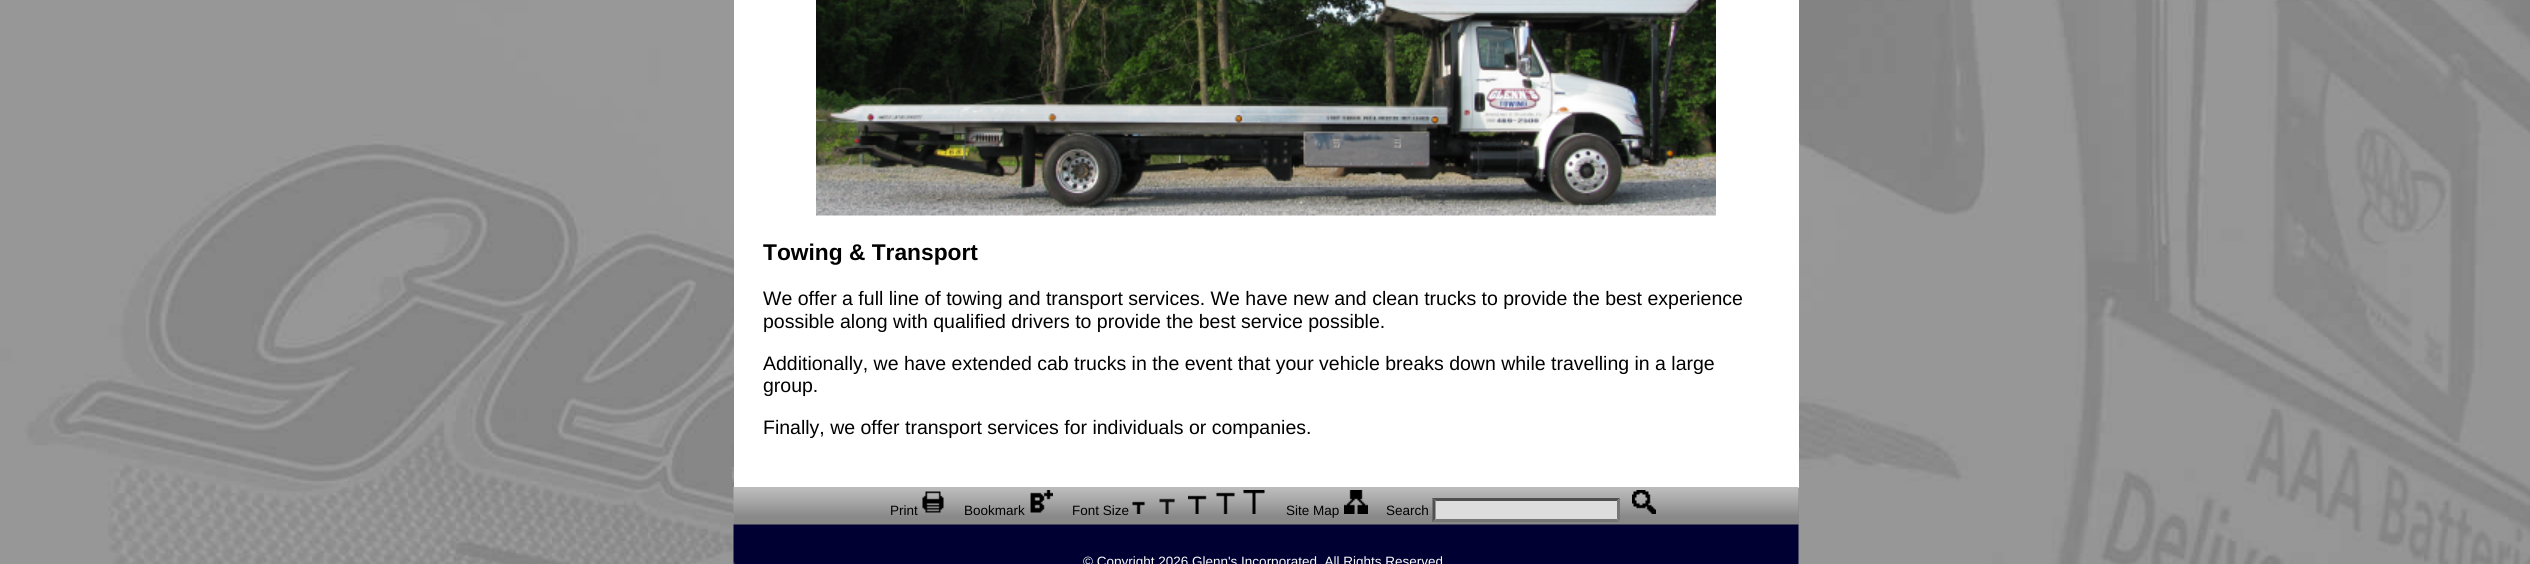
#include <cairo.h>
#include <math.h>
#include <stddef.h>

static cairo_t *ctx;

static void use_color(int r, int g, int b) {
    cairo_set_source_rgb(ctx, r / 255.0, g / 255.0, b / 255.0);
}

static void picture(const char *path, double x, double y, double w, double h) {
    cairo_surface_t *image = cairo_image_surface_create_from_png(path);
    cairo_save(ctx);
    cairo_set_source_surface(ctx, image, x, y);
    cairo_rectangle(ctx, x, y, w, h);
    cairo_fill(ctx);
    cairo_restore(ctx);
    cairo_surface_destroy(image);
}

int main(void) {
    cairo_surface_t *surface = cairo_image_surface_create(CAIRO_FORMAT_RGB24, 2530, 564);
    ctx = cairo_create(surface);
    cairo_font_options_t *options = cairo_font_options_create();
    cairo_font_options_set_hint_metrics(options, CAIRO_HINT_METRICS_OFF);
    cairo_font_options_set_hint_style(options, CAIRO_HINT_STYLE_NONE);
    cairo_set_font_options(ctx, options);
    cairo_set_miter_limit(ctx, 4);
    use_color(255, 255, 255);
    cairo_paint(ctx);
    picture("img1.png", 0, 0, 2530, 564);
    use_color(255, 255, 255);
    cairo_rectangle(ctx, 734, 0, 1065, 488);
    cairo_fill(ctx);
    picture("img2.png", 816, 0, 900, 216);
    cairo_select_font_face(ctx, "Liberation Sans", CAIRO_FONT_SLANT_NORMAL, CAIRO_FONT_WEIGHT_BOLD);
    cairo_set_font_size(ctx, 22.75);
    use_color(0, 0, 0);
    cairo_move_to(ctx, 763, 260);
    cairo_show_text(ctx, "Towing & Transport");
    cairo_select_font_face(ctx, "Liberation Sans", CAIRO_FONT_SLANT_NORMAL, CAIRO_FONT_WEIGHT_NORMAL);
    cairo_set_font_size(ctx, 19.5);
    cairo_move_to(ctx, 763, 305);
    cairo_show_text(ctx, "We offer a full line of towing and transport services. We have new and clean trucks to provide the best experience");
    cairo_move_to(ctx, 763, 328);
    cairo_show_text(ctx, "possible along with qualified drivers to provide the best service possible.");
    cairo_move_to(ctx, 763, 370);
    cairo_show_text(ctx, "Additionally, we have extended cab trucks in the event that your vehicle breaks down while travelling in a large");
    cairo_move_to(ctx, 763, 392);
    cairo_show_text(ctx, "group.");
    cairo_move_to(ctx, 763, 434);
    cairo_show_text(ctx, "Finally, we offer transport services for individuals or companies.");
    use_color(137, 137, 137);
    cairo_rectangle(ctx, 734, 488, 1065, 37);
    cairo_fill(ctx);
    picture("img3.png", 733, 487, 1066, 30);
    cairo_set_font_size(ctx, 13.5);
    use_color(0, 0, 0);
    cairo_move_to(ctx, 890, 515);
    cairo_show_text(ctx, "Print");
    picture("img4.png", 922, 491, 22, 22);
    cairo_move_to(ctx, 964, 515);
    cairo_show_text(ctx, "Bookmark");
    picture("img5.png", 1030, 490, 23, 23);
    cairo_move_to(ctx, 1072, 515);
    cairo_show_text(ctx, "Font Size");
    picture("img6.png", 1132, 501, 13, 13);
    picture("img7.png", 1159, 498, 16, 16);
    picture("img8.png", 1188, 495, 19, 19);
    picture("img9.png", 1216, 492, 19, 22);
    picture("img10.png", 1243, 490, 22, 24);
    cairo_move_to(ctx, 1286, 515);
    cairo_show_text(ctx, "Site Map");
    picture("img11.png", 1344, 490, 24, 24);
    cairo_move_to(ctx, 1386, 515);
    cairo_show_text(ctx, "Search");
    use_color(221, 221, 221);
    cairo_rectangle(ctx, 1433, 498, 187, 24);
    cairo_fill(ctx);
    use_color(79, 79, 79);
    cairo_new_path(ctx);
    cairo_move_to(ctx, 1432, 498);
    cairo_line_to(ctx, 1620, 498);
    cairo_line_to(ctx, 1617, 501);
    cairo_line_to(ctx, 1436, 501);
    cairo_close_path(ctx);
    cairo_fill(ctx);
    use_color(118, 118, 118);
    cairo_new_path(ctx);
    cairo_move_to(ctx, 1620, 498);
    cairo_line_to(ctx, 1620, 522);
    cairo_line_to(ctx, 1617, 519);
    cairo_line_to(ctx, 1617, 501);
    cairo_close_path(ctx);
    cairo_fill(ctx);
    cairo_new_path(ctx);
    cairo_move_to(ctx, 1620, 522);
    cairo_line_to(ctx, 1432, 522);
    cairo_line_to(ctx, 1436, 519);
    cairo_line_to(ctx, 1617, 519);
    cairo_close_path(ctx);
    cairo_fill(ctx);
    use_color(79, 79, 79);
    cairo_new_path(ctx);
    cairo_move_to(ctx, 1432.5, 522);
    cairo_line_to(ctx, 1432.5, 498);
    cairo_line_to(ctx, 1435.5, 501);
    cairo_line_to(ctx, 1435.5, 519);
    cairo_close_path(ctx);
    cairo_fill(ctx);
    picture("img12.png", 1632, 490, 24, 24);
    picture("img13.png", 733, 524, 1066, 40);
    use_color(255, 255, 255);
    cairo_move_to(ctx, 1083, 566);
    cairo_show_text(ctx, "© Copyright 2026 Glenn's Incorporated. All Rights Reserved");
    cairo_surface_write_to_png(surface, "result.png");
    cairo_font_options_destroy(options);
    cairo_destroy(ctx);
    cairo_surface_destroy(surface);
    return 0;
}
